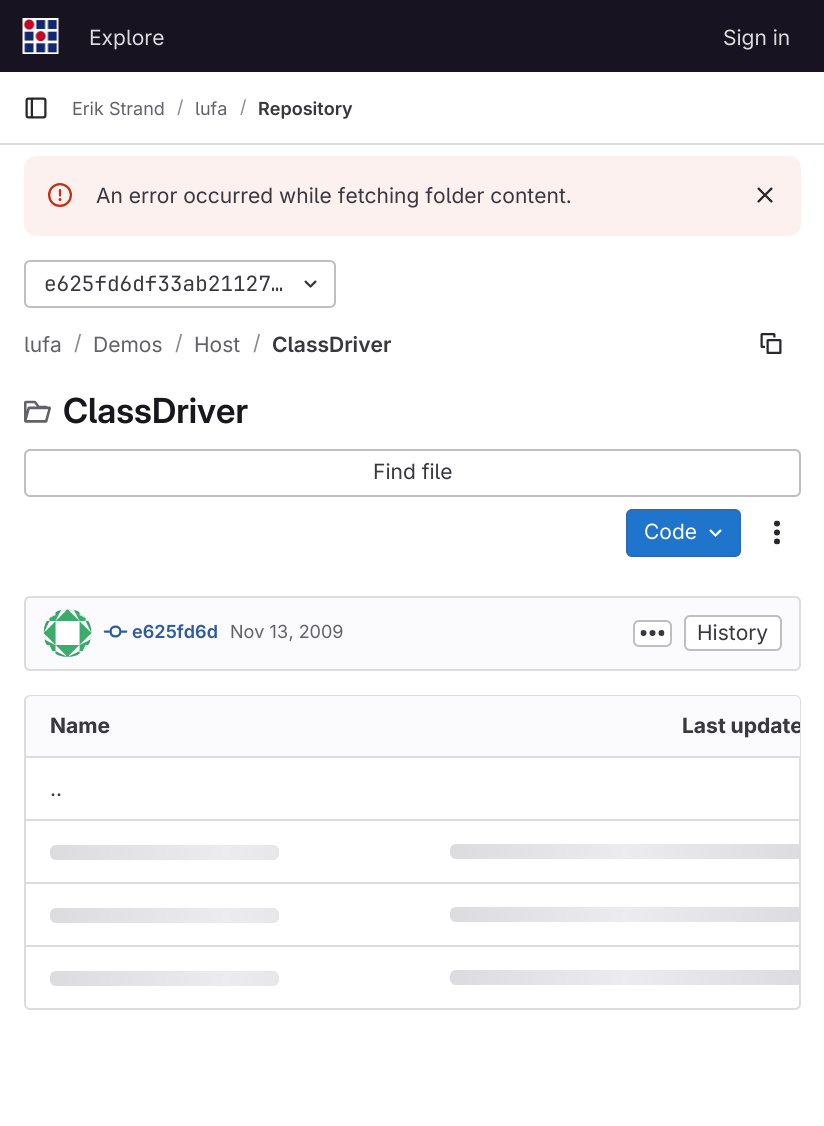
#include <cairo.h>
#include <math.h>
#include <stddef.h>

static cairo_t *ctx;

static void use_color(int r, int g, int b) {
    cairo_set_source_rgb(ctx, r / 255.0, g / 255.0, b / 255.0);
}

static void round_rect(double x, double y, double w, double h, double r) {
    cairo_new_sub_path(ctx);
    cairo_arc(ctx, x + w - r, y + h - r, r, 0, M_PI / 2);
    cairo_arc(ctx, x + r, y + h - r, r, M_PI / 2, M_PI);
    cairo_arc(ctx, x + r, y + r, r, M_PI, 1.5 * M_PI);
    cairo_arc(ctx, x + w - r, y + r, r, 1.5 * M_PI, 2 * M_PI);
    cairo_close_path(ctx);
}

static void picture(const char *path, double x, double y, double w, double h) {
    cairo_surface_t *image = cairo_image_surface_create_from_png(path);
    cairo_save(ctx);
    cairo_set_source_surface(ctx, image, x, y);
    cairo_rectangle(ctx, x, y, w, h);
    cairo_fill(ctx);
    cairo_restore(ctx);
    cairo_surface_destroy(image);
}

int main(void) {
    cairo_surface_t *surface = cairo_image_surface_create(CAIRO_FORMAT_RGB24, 824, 1126);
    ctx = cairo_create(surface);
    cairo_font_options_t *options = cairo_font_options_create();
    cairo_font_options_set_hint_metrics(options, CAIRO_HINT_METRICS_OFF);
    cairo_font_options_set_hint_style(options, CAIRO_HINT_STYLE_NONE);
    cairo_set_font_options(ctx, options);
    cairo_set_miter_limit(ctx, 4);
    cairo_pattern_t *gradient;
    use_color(255, 255, 255);
    cairo_paint(ctx);
    use_color(23, 19, 33);
    cairo_rectangle(ctx, 0, 0, 824, 72);
    cairo_fill(ctx);
    picture("img1.png", 22, 18, 37, 36);
    cairo_select_font_face(ctx, "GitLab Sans", CAIRO_FONT_SLANT_NORMAL, CAIRO_FONT_WEIGHT_NORMAL);
    cairo_set_font_size(ctx, 21);
    use_color(220, 220, 222);
    cairo_move_to(ctx, 89, 45);
    cairo_show_text(ctx, "Explore");
    cairo_move_to(ctx, 723, 45);
    cairo_show_text(ctx, "Sign in");
    cairo_rectangle(ctx, 0, 143, 824, 2);
    cairo_fill(ctx);
    picture("img2.png", 25, 97, 22, 22);
    cairo_set_font_size(ctx, 18);
    use_color(98, 97, 104);
    cairo_move_to(ctx, 72, 115);
    cairo_show_text(ctx, "Erik Strand");
    use_color(137, 136, 141);
    cairo_move_to(ctx, 177, 113);
    cairo_show_text(ctx, "/");
    use_color(98, 97, 104);
    cairo_move_to(ctx, 195, 115);
    cairo_show_text(ctx, "lufa");
    use_color(137, 136, 141);
    cairo_move_to(ctx, 240, 113);
    cairo_show_text(ctx, "/");
    cairo_select_font_face(ctx, "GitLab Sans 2 SemiBold", CAIRO_FONT_SLANT_NORMAL, CAIRO_FONT_WEIGHT_NORMAL);
    use_color(58, 56, 63);
    cairo_move_to(ctx, 258, 115);
    cairo_show_text(ctx, "Repository");
    use_color(252, 241, 239);
    round_rect(24, 156, 777, 80, 12);
    cairo_fill(ctx);
    picture("img3.png", 48, 183, 24, 24);
    cairo_select_font_face(ctx, "GitLab Sans", CAIRO_FONT_SLANT_NORMAL, CAIRO_FONT_WEIGHT_NORMAL);
    cairo_set_font_size(ctx, 21);
    use_color(58, 56, 63);
    cairo_move_to(ctx, 96, 203);
    cairo_show_text(ctx, "An error occurred while fetching folder content.");
    picture("img4.png", 757, 187, 16, 16);
    round_rect(25, 261, 310, 46, 5);
    use_color(191, 191, 195);
    cairo_stroke(ctx);
    cairo_select_font_face(ctx, "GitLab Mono", CAIRO_FONT_SLANT_NORMAL, CAIRO_FONT_WEIGHT_NORMAL);
    use_color(58, 56, 63);
    cairo_move_to(ctx, 44, 291);
    cairo_show_text(ctx, "e625fd6df33ab21127…");
    picture("img5.png", 304, 280, 13, 8);
    cairo_select_font_face(ctx, "GitLab Sans", CAIRO_FONT_SLANT_NORMAL, CAIRO_FONT_WEIGHT_NORMAL);
    use_color(98, 97, 104);
    cairo_move_to(ctx, 24, 352);
    cairo_show_text(ctx, "lufa");
    use_color(137, 136, 141);
    cairo_move_to(ctx, 74, 350);
    cairo_show_text(ctx, "/");
    use_color(98, 97, 104);
    cairo_move_to(ctx, 93, 352);
    cairo_show_text(ctx, "Demos");
    use_color(137, 136, 141);
    cairo_move_to(ctx, 175, 350);
    cairo_show_text(ctx, "/");
    use_color(98, 97, 104);
    cairo_move_to(ctx, 194, 352);
    cairo_show_text(ctx, "Host");
    use_color(137, 136, 141);
    cairo_move_to(ctx, 253, 350);
    cairo_show_text(ctx, "/");
    cairo_select_font_face(ctx, "GitLab Sans 2 SemiBold", CAIRO_FONT_SLANT_NORMAL, CAIRO_FONT_WEIGHT_NORMAL);
    use_color(58, 56, 63);
    cairo_move_to(ctx, 272, 352);
    cairo_show_text(ctx, "ClassDriver");
    picture("img6.png", 760, 333, 22, 21);
    picture("img7.png", 24, 400, 27, 23);
    cairo_select_font_face(ctx, "GitLab Sans SemiBold", CAIRO_FONT_SLANT_NORMAL, CAIRO_FONT_WEIGHT_NORMAL);
    cairo_set_font_size(ctx, 34.5);
    use_color(24, 23, 29);
    cairo_move_to(ctx, 63, 423);
    cairo_show_text(ctx, "ClassDriver");
    round_rect(25, 450, 775, 46, 5);
    use_color(191, 191, 195);
    cairo_stroke(ctx);
    cairo_select_font_face(ctx, "GitLab Sans", CAIRO_FONT_SLANT_NORMAL, CAIRO_FONT_WEIGHT_NORMAL);
    cairo_set_font_size(ctx, 21);
    use_color(58, 56, 63);
    cairo_move_to(ctx, 373, 479);
    cairo_show_text(ctx, "Find file");
    use_color(31, 117, 203);
    round_rect(627, 510, 113, 46, 5);
    cairo_fill_preserve(ctx);
    use_color(47, 104, 180);
    cairo_stroke(ctx);
    use_color(255, 255, 255);
    cairo_move_to(ctx, 644, 539);
    cairo_show_text(ctx, "Code");
    picture("img8.png", 709, 529, 13, 8);
    picture("img9.png", 774, 520, 6, 25);
    use_color(251, 250, 253);
    round_rect(25, 597, 775, 73, 5);
    cairo_fill_preserve(ctx);
    use_color(220, 220, 222);
    cairo_stroke(ctx);
    picture("img10.png", 43, 609, 49, 48);
    cairo_arc(ctx, 68, 633, 23, 0, 2 * M_PI);
    cairo_set_source_rgba(ctx, 0.02, 0.02, 0.024, 0.08);
    cairo_stroke(ctx);
    picture("img11.png", 103, 625, 25, 13);
    cairo_select_font_face(ctx, "GitLab Sans 2 SemiBold", CAIRO_FONT_SLANT_NORMAL, CAIRO_FONT_WEIGHT_NORMAL);
    cairo_set_font_size(ctx, 18);
    use_color(47, 92, 160);
    cairo_move_to(ctx, 132, 638);
    cairo_show_text(ctx, "e625fd6d");
    cairo_select_font_face(ctx, "GitLab Sans", CAIRO_FONT_SLANT_NORMAL, CAIRO_FONT_WEIGHT_NORMAL);
    use_color(98, 97, 104);
    cairo_move_to(ctx, 230, 638);
    cairo_show_text(ctx, "Nov 13, 2009");
    use_color(255, 255, 255);
    round_rect(634, 621, 37, 25, 5);
    cairo_fill_preserve(ctx);
    use_color(191, 191, 195);
    cairo_stroke(ctx);
    picture("img12.png", 640, 630, 25, 6);
    use_color(255, 255, 255);
    round_rect(685, 616, 96, 34, 5);
    cairo_fill_preserve(ctx);
    use_color(191, 191, 195);
    cairo_stroke(ctx);
    cairo_set_font_size(ctx, 21);
    use_color(58, 56, 63);
    cairo_move_to(ctx, 697, 640);
    cairo_show_text(ctx, "History");
    round_rect(25, 696, 775, 313, 5);
    use_color(220, 220, 222);
    cairo_stroke(ctx);
    use_color(251, 250, 253);
    cairo_new_path(ctx);
    cairo_move_to(ctx, 31, 696);
    cairo_line_to(ctx, 426, 696);
    cairo_line_to(ctx, 426, 756);
    cairo_line_to(ctx, 26, 756);
    cairo_line_to(ctx, 26, 701);
    cairo_curve_to(ctx, 26, 698, 28, 696, 31, 696);
    cairo_close_path(ctx);
    cairo_fill(ctx);
    cairo_select_font_face(ctx, "GitLab Sans", CAIRO_FONT_SLANT_NORMAL, CAIRO_FONT_WEIGHT_BOLD);
    use_color(58, 56, 63);
    cairo_move_to(ctx, 50, 733);
    cairo_show_text(ctx, "Name");
    use_color(251, 250, 253);
    cairo_new_path(ctx);
    cairo_move_to(ctx, 426, 696);
    cairo_line_to(ctx, 795, 696);
    cairo_curve_to(ctx, 798, 696, 800, 698, 800, 701);
    cairo_line_to(ctx, 800, 756);
    cairo_line_to(ctx, 426, 756);
    cairo_close_path(ctx);
    cairo_fill(ctx);
    cairo_save(ctx);
    round_rect(26, 696, 774, 312, 5);
    cairo_clip(ctx);
    use_color(58, 56, 63);
    cairo_move_to(ctx, 682, 733);
    cairo_show_text(ctx, "Last update");
    cairo_restore(ctx);
    use_color(220, 220, 222);
    cairo_rectangle(ctx, 26, 819, 774, 2);
    cairo_fill(ctx);
    cairo_rectangle(ctx, 26, 756, 774, 2);
    cairo_fill(ctx);
    cairo_select_font_face(ctx, "GitLab Sans", CAIRO_FONT_SLANT_NORMAL, CAIRO_FONT_WEIGHT_NORMAL);
    use_color(58, 56, 63);
    cairo_move_to(ctx, 50, 796);
    cairo_show_text(ctx, "..");
    use_color(220, 220, 222);
    cairo_rectangle(ctx, 26, 882, 774, 2);
    cairo_fill(ctx);
    gradient = cairo_pattern_create_linear(50, 845, 402, 845);
    cairo_pattern_add_color_stop_rgba(gradient, 0, 0.863, 0.863, 0.871, 1);
    cairo_pattern_add_color_stop_rgba(gradient, 0.5, 0.925, 0.925, 0.937, 1);
    cairo_pattern_add_color_stop_rgba(gradient, 1, 0.863, 0.863, 0.871, 1);
    cairo_set_source(ctx, gradient);
    cairo_pattern_destroy(gradient);
    round_rect(50, 845, 229, 15, 6);
    cairo_fill(ctx);
    cairo_save(ctx);
    round_rect(450, 844, 353, 15, 6);
    cairo_clip(ctx);
    gradient = cairo_pattern_create_linear(450, 844, 803, 844);
    cairo_pattern_add_color_stop_rgba(gradient, 0, 0.863, 0.863, 0.871, 1);
    cairo_pattern_add_color_stop_rgba(gradient, 0.5, 0.925, 0.925, 0.937, 1);
    cairo_pattern_add_color_stop_rgba(gradient, 1, 0.863, 0.863, 0.871, 1);
    cairo_set_source(ctx, gradient);
    cairo_pattern_destroy(gradient);
    cairo_new_path(ctx);
    cairo_move_to(ctx, 456, 844);
    cairo_line_to(ctx, 800, 844);
    cairo_line_to(ctx, 800, 859);
    cairo_line_to(ctx, 456, 859);
    cairo_curve_to(ctx, 452.5, 859, 450, 856.5, 450, 853);
    cairo_line_to(ctx, 450, 850);
    cairo_curve_to(ctx, 450, 846.5, 452.5, 844, 456, 844);
    cairo_close_path(ctx);
    cairo_fill(ctx);
    cairo_restore(ctx);
    use_color(220, 220, 222);
    cairo_rectangle(ctx, 26, 945, 774, 2);
    cairo_fill(ctx);
    gradient = cairo_pattern_create_linear(50, 908, 402, 908);
    cairo_pattern_add_color_stop_rgba(gradient, 0, 0.863, 0.863, 0.871, 1);
    cairo_pattern_add_color_stop_rgba(gradient, 0.5, 0.925, 0.925, 0.937, 1);
    cairo_pattern_add_color_stop_rgba(gradient, 1, 0.863, 0.863, 0.871, 1);
    cairo_set_source(ctx, gradient);
    cairo_pattern_destroy(gradient);
    round_rect(50, 908, 229, 15, 6);
    cairo_fill(ctx);
    cairo_save(ctx);
    round_rect(450, 907, 353, 15, 6);
    cairo_clip(ctx);
    gradient = cairo_pattern_create_linear(450, 907, 803, 907);
    cairo_pattern_add_color_stop_rgba(gradient, 0, 0.863, 0.863, 0.871, 1);
    cairo_pattern_add_color_stop_rgba(gradient, 0.5, 0.925, 0.925, 0.937, 1);
    cairo_pattern_add_color_stop_rgba(gradient, 1, 0.863, 0.863, 0.871, 1);
    cairo_set_source(ctx, gradient);
    cairo_pattern_destroy(gradient);
    cairo_new_path(ctx);
    cairo_move_to(ctx, 456, 907);
    cairo_line_to(ctx, 800, 907);
    cairo_line_to(ctx, 800, 922);
    cairo_line_to(ctx, 456, 922);
    cairo_curve_to(ctx, 452.5, 922, 450, 919.5, 450, 916);
    cairo_line_to(ctx, 450, 913);
    cairo_curve_to(ctx, 450, 909.5, 452.5, 907, 456, 907);
    cairo_close_path(ctx);
    cairo_fill(ctx);
    cairo_restore(ctx);
    gradient = cairo_pattern_create_linear(50, 971, 402, 971);
    cairo_pattern_add_color_stop_rgba(gradient, 0, 0.863, 0.863, 0.871, 1);
    cairo_pattern_add_color_stop_rgba(gradient, 0.5, 0.925, 0.925, 0.937, 1);
    cairo_pattern_add_color_stop_rgba(gradient, 1, 0.863, 0.863, 0.871, 1);
    cairo_set_source(ctx, gradient);
    cairo_pattern_destroy(gradient);
    round_rect(50, 971, 229, 15, 6);
    cairo_fill(ctx);
    cairo_save(ctx);
    round_rect(450, 970, 353, 15, 6);
    cairo_clip(ctx);
    gradient = cairo_pattern_create_linear(450, 970, 803, 970);
    cairo_pattern_add_color_stop_rgba(gradient, 0, 0.863, 0.863, 0.871, 1);
    cairo_pattern_add_color_stop_rgba(gradient, 0.5, 0.925, 0.925, 0.937, 1);
    cairo_pattern_add_color_stop_rgba(gradient, 1, 0.863, 0.863, 0.871, 1);
    cairo_set_source(ctx, gradient);
    cairo_pattern_destroy(gradient);
    cairo_new_path(ctx);
    cairo_move_to(ctx, 456, 970);
    cairo_line_to(ctx, 800, 970);
    cairo_line_to(ctx, 800, 985);
    cairo_line_to(ctx, 456, 985);
    cairo_curve_to(ctx, 452.5, 985, 450, 982.5, 450, 979);
    cairo_line_to(ctx, 450, 976);
    cairo_curve_to(ctx, 450, 972.5, 452.5, 970, 456, 970);
    cairo_close_path(ctx);
    cairo_fill(ctx);
    cairo_restore(ctx);
    cairo_surface_write_to_png(surface, "result.png");
    cairo_font_options_destroy(options);
    cairo_destroy(ctx);
    cairo_surface_destroy(surface);
    return 0;
}
